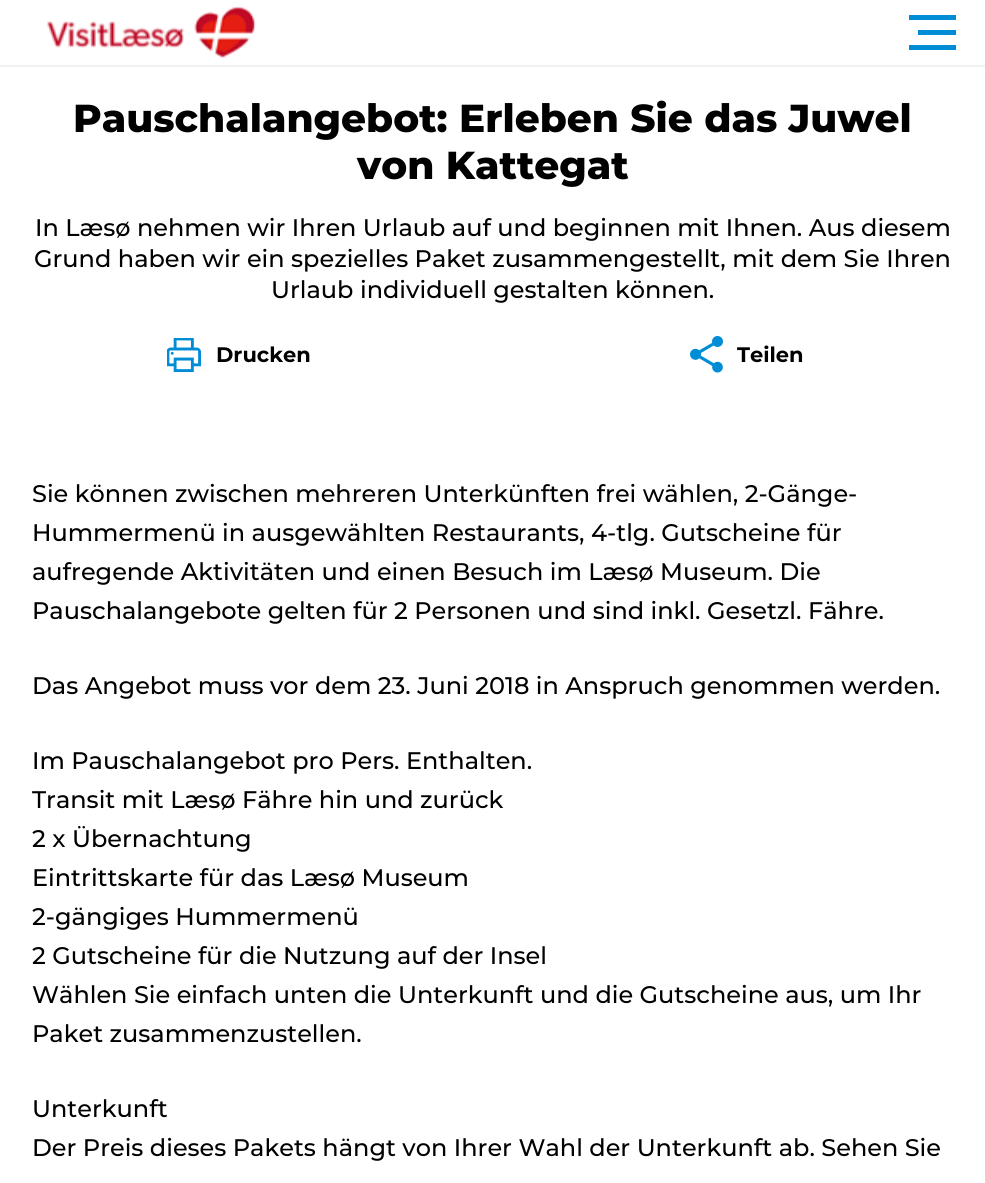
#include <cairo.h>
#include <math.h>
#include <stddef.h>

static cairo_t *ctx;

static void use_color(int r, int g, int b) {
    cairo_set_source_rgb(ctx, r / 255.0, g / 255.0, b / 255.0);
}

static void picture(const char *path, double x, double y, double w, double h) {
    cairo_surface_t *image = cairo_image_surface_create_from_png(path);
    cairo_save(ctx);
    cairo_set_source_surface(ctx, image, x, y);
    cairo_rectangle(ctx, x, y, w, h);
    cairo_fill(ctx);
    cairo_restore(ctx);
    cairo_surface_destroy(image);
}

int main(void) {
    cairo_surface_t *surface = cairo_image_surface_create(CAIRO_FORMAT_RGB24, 985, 1183);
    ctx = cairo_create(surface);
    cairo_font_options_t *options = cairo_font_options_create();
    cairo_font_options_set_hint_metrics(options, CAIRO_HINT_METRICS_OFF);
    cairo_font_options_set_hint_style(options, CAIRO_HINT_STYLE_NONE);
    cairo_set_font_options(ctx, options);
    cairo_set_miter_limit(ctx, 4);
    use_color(255, 255, 255);
    cairo_paint(ctx);
    use_color(240, 241, 243);
    cairo_rectangle(ctx, 0, 65, 985, 2);
    cairo_fill(ctx);
    picture("img1.png", 47, 6, 209, 52);
    use_color(0, 141, 214);
    cairo_rectangle(ctx, 909, 15, 47, 5);
    cairo_fill(ctx);
    cairo_rectangle(ctx, 918, 30, 38, 5);
    cairo_fill(ctx);
    cairo_rectangle(ctx, 909, 45, 47, 5);
    cairo_fill(ctx);
    cairo_select_font_face(ctx, "Montserrat ExtraBold", CAIRO_FONT_SLANT_NORMAL, CAIRO_FONT_WEIGHT_NORMAL);
    cairo_set_font_size(ctx, 39);
    use_color(0, 0, 0);
    cairo_move_to(ctx, 73, 132);
    cairo_show_text(ctx, "Pauschalangebot: Erleben Sie das Juwel");
    cairo_move_to(ctx, 357, 179);
    cairo_show_text(ctx, "von Kattegat");
    cairo_select_font_face(ctx, "Montserrat Medium", CAIRO_FONT_SLANT_NORMAL, CAIRO_FONT_WEIGHT_NORMAL);
    cairo_set_font_size(ctx, 24);
    cairo_move_to(ctx, 35, 236);
    cairo_show_text(ctx, "In Læsø nehmen wir Ihren Urlaub auf und beginnen mit Ihnen. Aus diesem");
    cairo_move_to(ctx, 34, 267);
    cairo_show_text(ctx, "Grund haben wir ein spezielles Paket zusammengestellt, mit dem Sie Ihren");
    cairo_move_to(ctx, 271, 298);
    cairo_show_text(ctx, "Urlaub individuell gestalten können.");
    picture("img2.png", 167, 338, 34, 34);
    cairo_select_font_face(ctx, "Montserrat", CAIRO_FONT_SLANT_NORMAL, CAIRO_FONT_WEIGHT_BOLD);
    cairo_set_font_size(ctx, 21);
    cairo_move_to(ctx, 216, 362);
    cairo_show_text(ctx, "Drucken");
    picture("img3.png", 690, 336, 33, 37);
    cairo_move_to(ctx, 737, 362);
    cairo_show_text(ctx, "Teilen");
    cairo_select_font_face(ctx, "Montserrat Medium", CAIRO_FONT_SLANT_NORMAL, CAIRO_FONT_WEIGHT_NORMAL);
    cairo_set_font_size(ctx, 24);
    cairo_move_to(ctx, 32, 502);
    cairo_show_text(ctx, "Sie können zwischen mehreren Unterkünften frei wählen, 2-Gänge-");
    cairo_move_to(ctx, 32, 541);
    cairo_show_text(ctx, "Hummermenü in ausgewählten Restaurants, 4-tlg. Gutscheine für");
    cairo_move_to(ctx, 32, 580);
    cairo_show_text(ctx, "aufregende Aktivitäten und einen Besuch im Læsø Museum. Die");
    cairo_move_to(ctx, 32, 619);
    cairo_show_text(ctx, "Pauschalangebote gelten für 2 Personen und sind inkl. Gesetzl. Fähre.");
    cairo_move_to(ctx, 32, 694);
    cairo_show_text(ctx, "Das Angebot muss vor dem 23. Juni 2018 in Anspruch genommen werden.");
    cairo_move_to(ctx, 32, 769);
    cairo_show_text(ctx, "Im Pauschalangebot pro Pers. Enthalten.");
    cairo_move_to(ctx, 32, 808);
    cairo_show_text(ctx, "Transit mit Læsø Fähre hin und zurück");
    cairo_move_to(ctx, 32, 847);
    cairo_show_text(ctx, "2 x Übernachtung");
    cairo_move_to(ctx, 32, 886);
    cairo_show_text(ctx, "Eintrittskarte für das Læsø Museum");
    cairo_move_to(ctx, 32, 925);
    cairo_show_text(ctx, "2-gängiges Hummermenü");
    cairo_move_to(ctx, 32, 964);
    cairo_show_text(ctx, "2 Gutscheine für die Nutzung auf der Insel");
    cairo_move_to(ctx, 32, 1003);
    cairo_show_text(ctx, "Wählen Sie einfach unten die Unterkunft und die Gutscheine aus, um Ihr");
    cairo_move_to(ctx, 32, 1042);
    cairo_show_text(ctx, "Paket zusammenzustellen.");
    cairo_move_to(ctx, 32, 1117);
    cairo_show_text(ctx, "Unterkunft");
    cairo_move_to(ctx, 32, 1156);
    cairo_show_text(ctx, "Der Preis dieses Pakets hängt von Ihrer Wahl der Unterkunft ab. Sehen Sie");
    cairo_surface_write_to_png(surface, "result.png");
    cairo_font_options_destroy(options);
    cairo_destroy(ctx);
    cairo_surface_destroy(surface);
    return 0;
}
